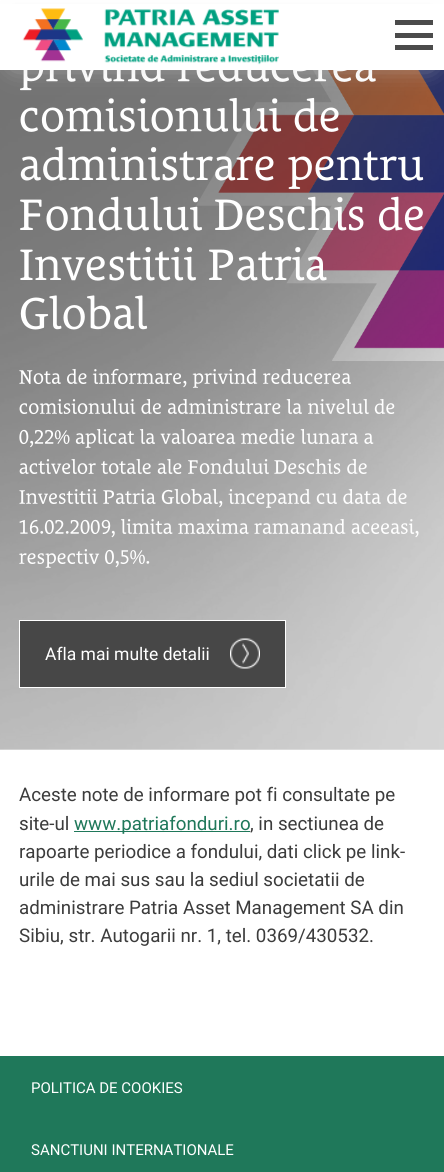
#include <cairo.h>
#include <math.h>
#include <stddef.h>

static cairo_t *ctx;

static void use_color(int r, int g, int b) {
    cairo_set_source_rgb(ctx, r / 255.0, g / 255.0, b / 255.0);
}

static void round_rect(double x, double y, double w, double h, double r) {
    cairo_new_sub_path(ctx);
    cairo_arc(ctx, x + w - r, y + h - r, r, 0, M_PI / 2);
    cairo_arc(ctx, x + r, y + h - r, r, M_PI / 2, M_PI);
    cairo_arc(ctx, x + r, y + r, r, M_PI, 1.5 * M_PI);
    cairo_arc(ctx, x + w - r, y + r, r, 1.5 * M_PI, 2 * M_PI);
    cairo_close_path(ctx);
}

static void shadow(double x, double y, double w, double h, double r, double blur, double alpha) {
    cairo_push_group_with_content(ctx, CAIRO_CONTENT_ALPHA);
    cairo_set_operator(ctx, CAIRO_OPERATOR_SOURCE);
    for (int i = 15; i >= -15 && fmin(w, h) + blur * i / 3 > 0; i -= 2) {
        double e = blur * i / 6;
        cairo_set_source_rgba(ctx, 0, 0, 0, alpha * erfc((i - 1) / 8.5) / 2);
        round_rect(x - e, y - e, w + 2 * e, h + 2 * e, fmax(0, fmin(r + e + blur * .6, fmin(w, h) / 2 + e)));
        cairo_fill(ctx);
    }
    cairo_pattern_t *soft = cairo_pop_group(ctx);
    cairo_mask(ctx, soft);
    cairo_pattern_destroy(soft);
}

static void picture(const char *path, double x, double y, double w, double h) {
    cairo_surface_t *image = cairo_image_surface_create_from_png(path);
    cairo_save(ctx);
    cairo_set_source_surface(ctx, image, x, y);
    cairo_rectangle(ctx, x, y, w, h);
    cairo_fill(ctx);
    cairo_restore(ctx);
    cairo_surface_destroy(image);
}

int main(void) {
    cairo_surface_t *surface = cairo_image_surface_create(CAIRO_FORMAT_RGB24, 444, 1172);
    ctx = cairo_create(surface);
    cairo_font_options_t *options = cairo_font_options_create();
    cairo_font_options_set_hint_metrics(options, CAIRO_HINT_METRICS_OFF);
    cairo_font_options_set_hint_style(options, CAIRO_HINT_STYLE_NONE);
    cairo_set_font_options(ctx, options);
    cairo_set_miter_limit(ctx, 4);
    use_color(255, 255, 255);
    cairo_paint(ctx);
    picture("img2.png", 0, 70, 444, 680);
    picture("img3.png", 0, 70, 444, 680);
    picture("img4.png", 20, 70, 356, 21);
    picture("img5.png", 20, 97, 319, 35);
    use_color(212, 212, 212);
    shadow(14, 21, 417, 43, 0, 12.5, 0.71);
    use_color(255, 255, 255);
    cairo_rectangle(ctx, 0, 4, 444, 66);
    cairo_fill(ctx);
    picture("img1.png", 22, 8, 257, 57);
    use_color(75, 75, 75);
    cairo_rectangle(ctx, 395, 20, 38, 5);
    cairo_fill(ctx);
    cairo_rectangle(ctx, 395, 33, 38, 5);
    cairo_fill(ctx);
    cairo_rectangle(ctx, 395, 45, 38, 5);
    cairo_fill(ctx);
    picture("img6.png", 20, 146, 404, 43);
    picture("img7.png", 20, 196, 403, 35);
    picture("img8.png", 20, 247, 307, 34);
    picture("img9.png", 20, 295, 128, 35);
    picture("img10.png", 19, 368, 332, 20);
    picture("img11.png", 19, 399, 283, 16);
    picture("img12.png", 308, 399, 87, 15);
    picture("img13.png", 19, 429, 355, 19);
    picture("img14.png", 19, 459, 163, 16);
    picture("img15.png", 188, 459, 81, 16);
    picture("img16.png", 274, 459, 93, 15);
    picture("img17.png", 19, 489, 388, 19);
    picture("img18.png", 19, 519, 400, 19);
    picture("img19.png", 19, 549, 131, 19);
    use_color(71, 71, 71);
    cairo_rectangle(ctx, 19.5, 620.5, 266, 67);
    cairo_fill_preserve(ctx);
    use_color(255, 255, 255);
    cairo_set_line_width(ctx, 1);
    cairo_stroke(ctx);
    cairo_select_font_face(ctx, "Roboto", CAIRO_FONT_SLANT_NORMAL, CAIRO_FONT_WEIGHT_NORMAL);
    cairo_set_font_size(ctx, 17.5);
    cairo_move_to(ctx, 45, 660);
    cairo_show_text(ctx, "Afla mai multe detalii");
    picture("img20.png", 230, 638, 30, 31);
    cairo_set_font_size(ctx, 18.75);
    use_color(60, 60, 60);
    cairo_move_to(ctx, 19, 801);
    cairo_show_text(ctx, "Aceste note de informare pot fi consultate pe");
    cairo_move_to(ctx, 19, 830);
    cairo_show_text(ctx, "site-ul");
    use_color(31, 120, 90);
    cairo_rectangle(ctx, 74, 831, 176, 1);
    cairo_fill(ctx);
    cairo_move_to(ctx, 74, 830);
    cairo_show_text(ctx, "www.patriafonduri.ro");
    use_color(60, 60, 60);
    cairo_move_to(ctx, 250, 830);
    cairo_show_text(ctx, ", in sectiunea de");
    cairo_move_to(ctx, 19, 858);
    cairo_show_text(ctx, "rapoarte periodice a fondului, dati click pe link-");
    cairo_move_to(ctx, 19, 886);
    cairo_show_text(ctx, "urile de mai sus sau la sediul societatii de");
    cairo_move_to(ctx, 19, 914);
    cairo_show_text(ctx, "administrare Patria Asset Management SA din");
    cairo_move_to(ctx, 19, 942);
    cairo_show_text(ctx, "Sibiu, str. Autogarii nr. 1, tel. 0369/430532.");
    use_color(31, 120, 90);
    cairo_rectangle(ctx, 0, 1056, 444, 116);
    cairo_fill(ctx);
    cairo_set_font_size(ctx, 15);
    use_color(255, 255, 255);
    cairo_move_to(ctx, 31, 1093);
    cairo_show_text(ctx, "POLITICA DE COOKIES");
    cairo_move_to(ctx, 31, 1155);
    cairo_show_text(ctx, "SANCTIUNI INTERNATIONALE");
    cairo_surface_write_to_png(surface, "result.png");
    cairo_font_options_destroy(options);
    cairo_destroy(ctx);
    cairo_surface_destroy(surface);
    return 0;
}
